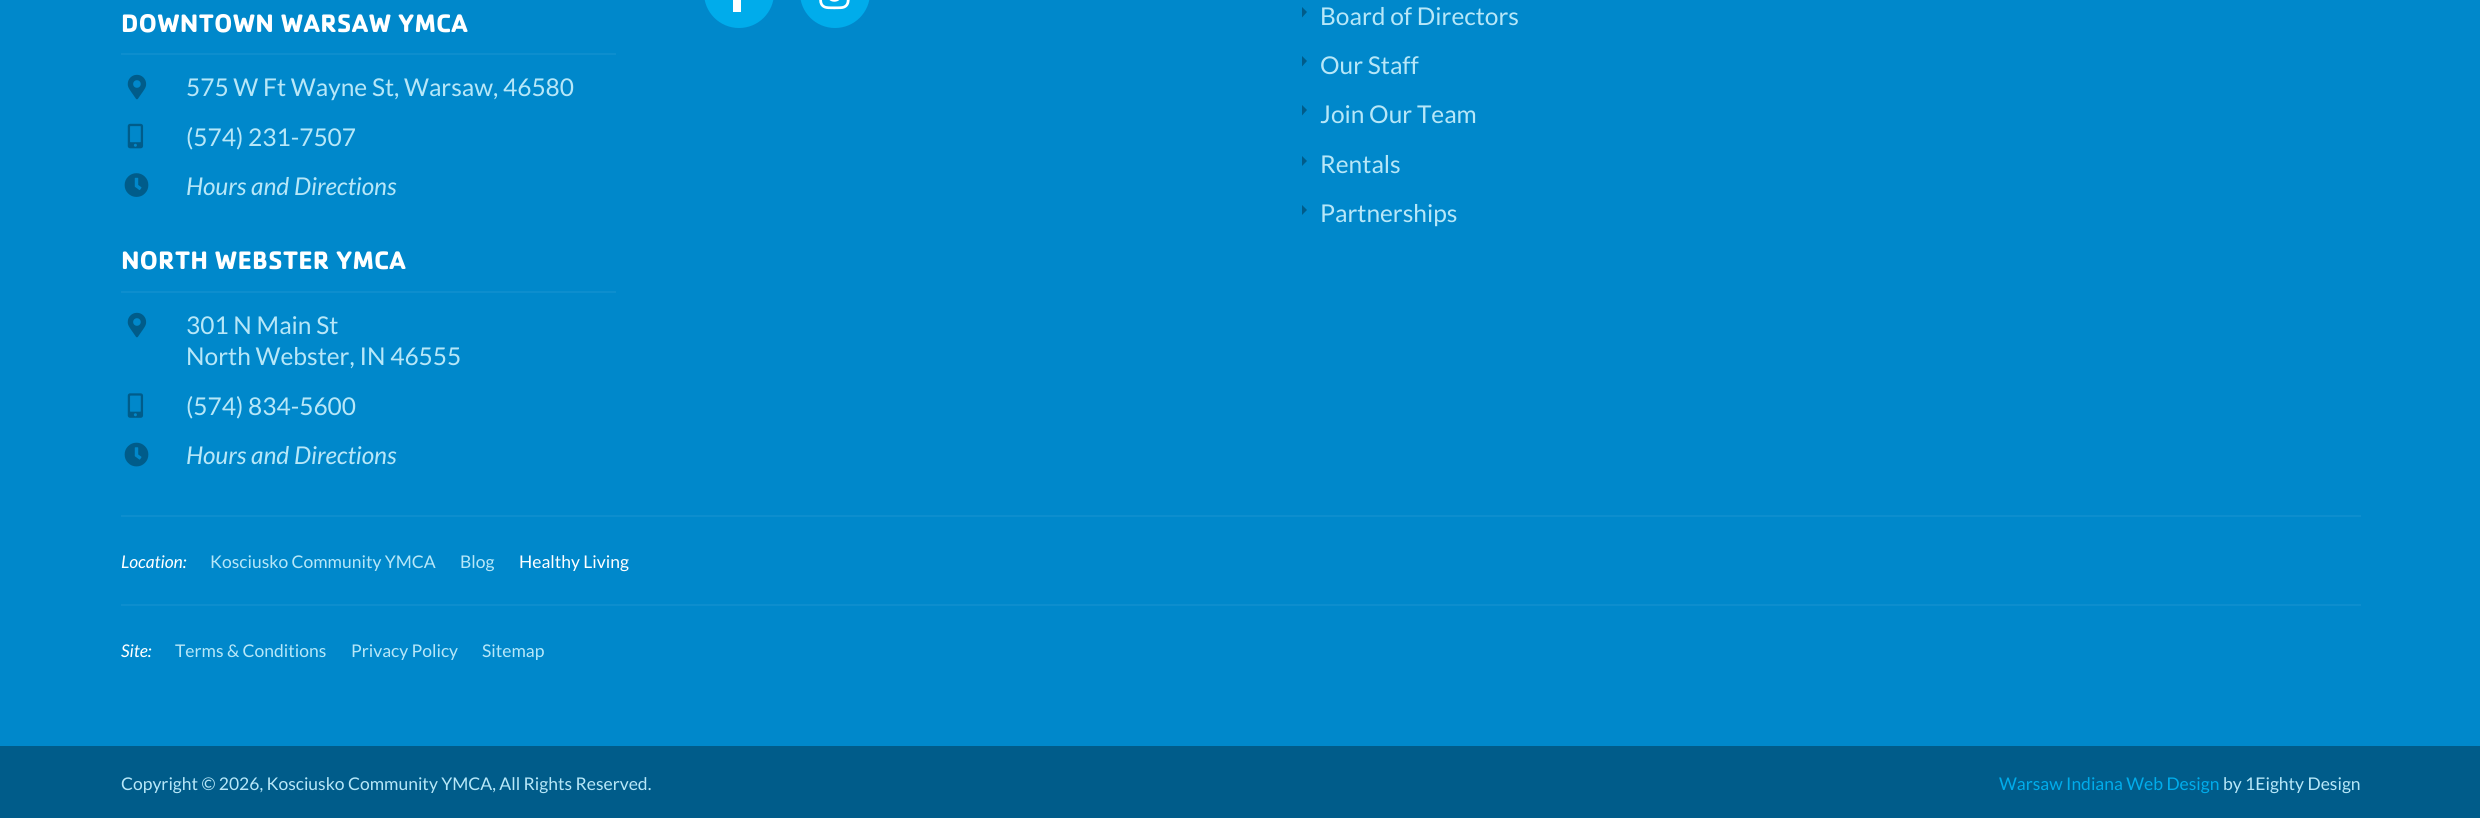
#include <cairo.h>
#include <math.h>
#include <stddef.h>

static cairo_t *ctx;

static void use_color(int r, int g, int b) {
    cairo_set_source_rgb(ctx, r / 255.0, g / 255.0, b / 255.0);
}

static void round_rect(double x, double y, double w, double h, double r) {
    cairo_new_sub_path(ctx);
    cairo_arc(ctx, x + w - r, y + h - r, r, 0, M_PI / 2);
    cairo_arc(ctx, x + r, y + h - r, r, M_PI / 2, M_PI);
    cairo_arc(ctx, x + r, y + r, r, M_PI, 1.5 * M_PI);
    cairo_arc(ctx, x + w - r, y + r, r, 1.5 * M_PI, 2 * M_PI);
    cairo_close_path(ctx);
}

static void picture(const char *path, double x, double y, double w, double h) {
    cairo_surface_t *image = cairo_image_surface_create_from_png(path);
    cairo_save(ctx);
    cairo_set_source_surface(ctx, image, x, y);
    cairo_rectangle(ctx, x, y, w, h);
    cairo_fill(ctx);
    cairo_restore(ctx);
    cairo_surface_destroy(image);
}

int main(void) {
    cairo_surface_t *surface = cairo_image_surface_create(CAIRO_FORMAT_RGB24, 2480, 818);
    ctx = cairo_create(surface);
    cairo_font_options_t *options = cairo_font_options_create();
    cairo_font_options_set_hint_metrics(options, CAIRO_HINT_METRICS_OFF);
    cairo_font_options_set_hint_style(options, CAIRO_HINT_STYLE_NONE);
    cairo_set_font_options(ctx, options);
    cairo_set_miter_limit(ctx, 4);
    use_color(0, 92, 138);
    cairo_paint(ctx);
    use_color(0, 136, 203);
    cairo_rectangle(ctx, 0, 0, 2480, 746);
    cairo_fill(ctx);
    use_color(0, 172, 235);
    round_rect(704, -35, 70, 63, 35);
    cairo_fill(ctx);
    use_color(255, 255, 255);
    cairo_rectangle(ctx, 733, 0, 8, 12);
    cairo_fill(ctx);
    use_color(0, 172, 235);
    round_rect(800, -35, 70, 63, 35);
    cairo_fill(ctx);
    picture("img1.png", 819, 0, 31, 10);
    use_color(13, 142, 206);
    cairo_rectangle(ctx, 121, 53, 495, 2);
    cairo_fill(ctx);
    cairo_select_font_face(ctx, "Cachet", CAIRO_FONT_SLANT_NORMAL, CAIRO_FONT_WEIGHT_BOLD);
    cairo_set_font_size(ctx, 26.25);
    use_color(255, 255, 255);
    cairo_move_to(ctx, 121, 32);
    cairo_show_text(ctx, "DOWNTOWN WARSAW YMCA");
    picture("img2.png", 127, 74, 20, 26);
    cairo_select_font_face(ctx, "Lato", CAIRO_FONT_SLANT_NORMAL, CAIRO_FONT_WEIGHT_NORMAL);
    cairo_set_font_size(ctx, 24.5);
    use_color(183, 231, 248);
    cairo_move_to(ctx, 186, 96);
    cairo_show_text(ctx, "575 W Ft Wayne St, Warsaw, 46580");
    picture("img3.png", 127, 123, 17, 26);
    cairo_move_to(ctx, 186, 146);
    cairo_show_text(ctx, "(574) 231-7507");
    picture("img4.png", 124, 173, 25, 24);
    cairo_select_font_face(ctx, "Lato", CAIRO_FONT_SLANT_ITALIC, CAIRO_FONT_WEIGHT_NORMAL);
    cairo_move_to(ctx, 186, 195);
    cairo_show_text(ctx, "Hours and Directions");
    use_color(13, 142, 206);
    cairo_rectangle(ctx, 121, 291, 495, 2);
    cairo_fill(ctx);
    cairo_select_font_face(ctx, "Cachet", CAIRO_FONT_SLANT_NORMAL, CAIRO_FONT_WEIGHT_BOLD);
    cairo_set_font_size(ctx, 26.25);
    use_color(255, 255, 255);
    cairo_move_to(ctx, 121, 269);
    cairo_show_text(ctx, "NORTH WEBSTER YMCA");
    picture("img2.png", 127, 312, 20, 26);
    cairo_select_font_face(ctx, "Lato", CAIRO_FONT_SLANT_NORMAL, CAIRO_FONT_WEIGHT_NORMAL);
    cairo_set_font_size(ctx, 24.5);
    use_color(183, 231, 248);
    cairo_move_to(ctx, 186, 334);
    cairo_show_text(ctx, "301 N Main St");
    cairo_move_to(ctx, 186, 365);
    cairo_show_text(ctx, "North Webster, IN 46555");
    picture("img5.png", 127, 393, 17, 25);
    cairo_move_to(ctx, 186, 415);
    cairo_show_text(ctx, "(574) 834-5600");
    picture("img6.png", 124, 442, 25, 25);
    cairo_select_font_face(ctx, "Lato", CAIRO_FONT_SLANT_ITALIC, CAIRO_FONT_WEIGHT_NORMAL);
    cairo_move_to(ctx, 186, 464);
    cairo_show_text(ctx, "Hours and Directions");
    use_color(0, 92, 138);
    cairo_new_path(ctx);
    cairo_move_to(ctx, 1302, 17.5);
    cairo_line_to(ctx, 1302, 7);
    cairo_line_to(ctx, 1307, 12);
    cairo_close_path(ctx);
    cairo_fill(ctx);
    cairo_select_font_face(ctx, "Lato", CAIRO_FONT_SLANT_NORMAL, CAIRO_FONT_WEIGHT_NORMAL);
    use_color(183, 231, 248);
    cairo_move_to(ctx, 1320, 25);
    cairo_show_text(ctx, "Board of Directors");
    use_color(0, 92, 138);
    cairo_new_path(ctx);
    cairo_move_to(ctx, 1302, 66.5);
    cairo_line_to(ctx, 1302, 56);
    cairo_line_to(ctx, 1307, 61);
    cairo_close_path(ctx);
    cairo_fill(ctx);
    use_color(183, 231, 248);
    cairo_move_to(ctx, 1320, 74);
    cairo_show_text(ctx, "Our Staff");
    use_color(0, 92, 138);
    cairo_new_path(ctx);
    cairo_move_to(ctx, 1302, 115.5);
    cairo_line_to(ctx, 1302, 105);
    cairo_line_to(ctx, 1307, 110);
    cairo_close_path(ctx);
    cairo_fill(ctx);
    use_color(183, 231, 248);
    cairo_move_to(ctx, 1320, 123);
    cairo_show_text(ctx, "Join Our Team");
    use_color(0, 92, 138);
    cairo_new_path(ctx);
    cairo_move_to(ctx, 1302, 166);
    cairo_line_to(ctx, 1302, 156);
    cairo_line_to(ctx, 1307, 161);
    cairo_close_path(ctx);
    cairo_fill(ctx);
    use_color(183, 231, 248);
    cairo_move_to(ctx, 1320, 173);
    cairo_show_text(ctx, "Rentals");
    use_color(0, 92, 138);
    cairo_new_path(ctx);
    cairo_move_to(ctx, 1302, 215);
    cairo_line_to(ctx, 1302, 205);
    cairo_line_to(ctx, 1307, 210);
    cairo_close_path(ctx);
    cairo_fill(ctx);
    use_color(183, 231, 248);
    cairo_move_to(ctx, 1320, 222);
    cairo_show_text(ctx, "Partnerships");
    use_color(13, 142, 206);
    cairo_rectangle(ctx, 121, 515, 2240, 2);
    cairo_fill(ctx);
    cairo_select_font_face(ctx, "Lato", CAIRO_FONT_SLANT_ITALIC, CAIRO_FONT_WEIGHT_NORMAL);
    cairo_set_font_size(ctx, 17.5);
    use_color(255, 255, 255);
    cairo_move_to(ctx, 121, 568);
    cairo_show_text(ctx, "Location:");
    cairo_select_font_face(ctx, "Lato", CAIRO_FONT_SLANT_NORMAL, CAIRO_FONT_WEIGHT_NORMAL);
    use_color(183, 231, 248);
    cairo_move_to(ctx, 210, 568);
    cairo_show_text(ctx, "Kosciusko Community YMCA");
    cairo_move_to(ctx, 460, 568);
    cairo_show_text(ctx, "Blog");
    use_color(255, 255, 255);
    cairo_move_to(ctx, 519, 568);
    cairo_show_text(ctx, "Healthy Living");
    use_color(13, 142, 206);
    cairo_rectangle(ctx, 121, 604, 2240, 2);
    cairo_fill(ctx);
    cairo_select_font_face(ctx, "Lato", CAIRO_FONT_SLANT_ITALIC, CAIRO_FONT_WEIGHT_NORMAL);
    use_color(255, 255, 255);
    cairo_move_to(ctx, 121, 657);
    cairo_show_text(ctx, "Site:");
    cairo_select_font_face(ctx, "Lato", CAIRO_FONT_SLANT_NORMAL, CAIRO_FONT_WEIGHT_NORMAL);
    use_color(183, 231, 248);
    cairo_move_to(ctx, 175, 657);
    cairo_show_text(ctx, "Terms & Conditions");
    cairo_move_to(ctx, 351, 657);
    cairo_show_text(ctx, "Privacy Policy");
    cairo_move_to(ctx, 482, 657);
    cairo_show_text(ctx, "Sitemap");
    cairo_move_to(ctx, 121, 790);
    cairo_show_text(ctx, "Copyright © 2026, Kosciusko Community YMCA, All Rights Reserved.");
    use_color(0, 172, 235);
    cairo_move_to(ctx, 1999, 790);
    cairo_show_text(ctx, "Warsaw Indiana Web Design");
    use_color(183, 231, 248);
    cairo_move_to(ctx, 2223, 790);
    cairo_show_text(ctx, "by 1Eighty Design");
    cairo_surface_write_to_png(surface, "result.png");
    cairo_font_options_destroy(options);
    cairo_destroy(ctx);
    cairo_surface_destroy(surface);
    return 0;
}
